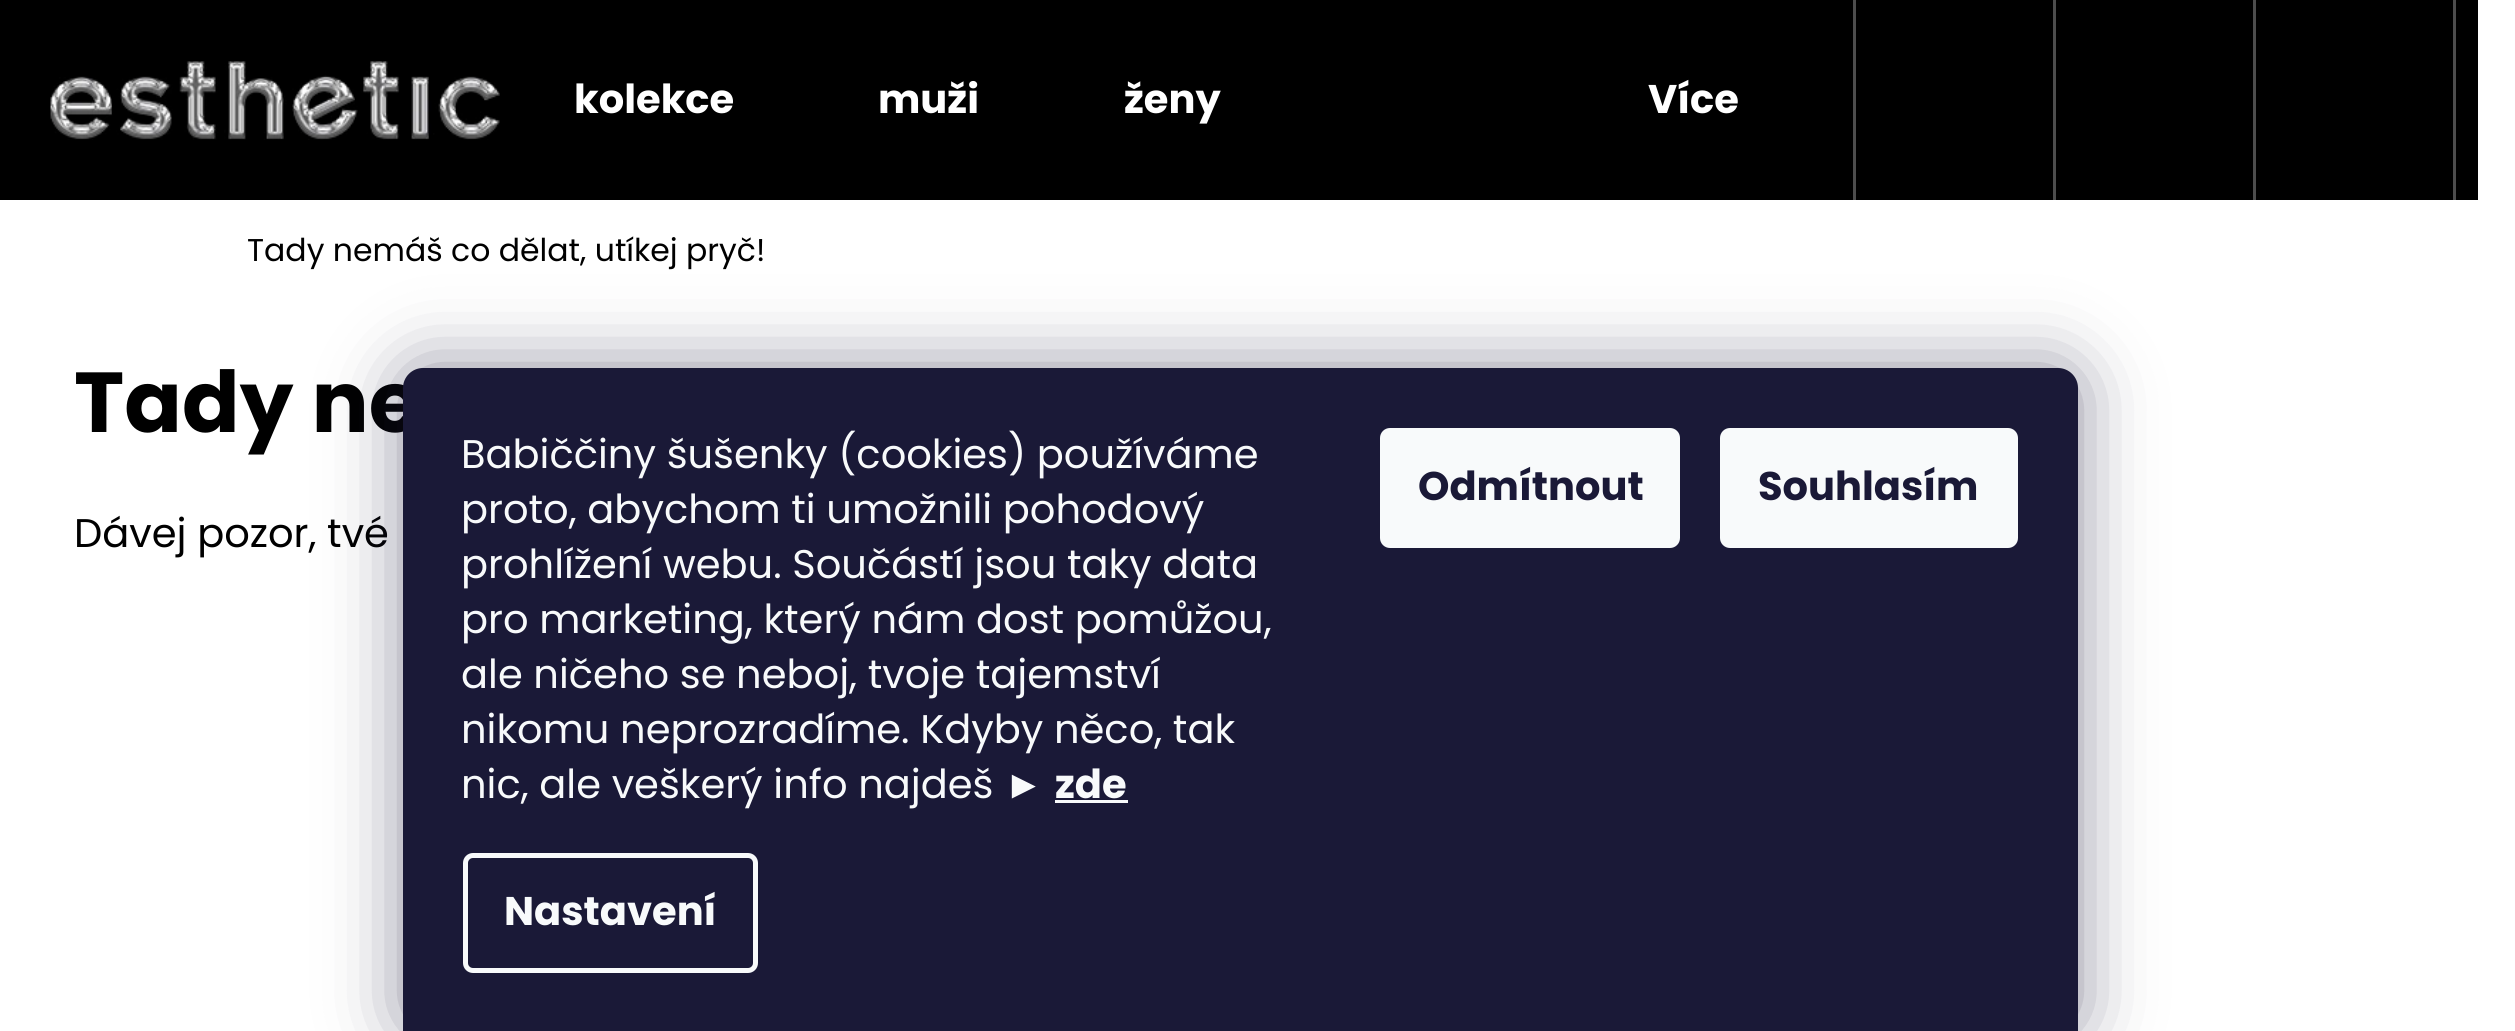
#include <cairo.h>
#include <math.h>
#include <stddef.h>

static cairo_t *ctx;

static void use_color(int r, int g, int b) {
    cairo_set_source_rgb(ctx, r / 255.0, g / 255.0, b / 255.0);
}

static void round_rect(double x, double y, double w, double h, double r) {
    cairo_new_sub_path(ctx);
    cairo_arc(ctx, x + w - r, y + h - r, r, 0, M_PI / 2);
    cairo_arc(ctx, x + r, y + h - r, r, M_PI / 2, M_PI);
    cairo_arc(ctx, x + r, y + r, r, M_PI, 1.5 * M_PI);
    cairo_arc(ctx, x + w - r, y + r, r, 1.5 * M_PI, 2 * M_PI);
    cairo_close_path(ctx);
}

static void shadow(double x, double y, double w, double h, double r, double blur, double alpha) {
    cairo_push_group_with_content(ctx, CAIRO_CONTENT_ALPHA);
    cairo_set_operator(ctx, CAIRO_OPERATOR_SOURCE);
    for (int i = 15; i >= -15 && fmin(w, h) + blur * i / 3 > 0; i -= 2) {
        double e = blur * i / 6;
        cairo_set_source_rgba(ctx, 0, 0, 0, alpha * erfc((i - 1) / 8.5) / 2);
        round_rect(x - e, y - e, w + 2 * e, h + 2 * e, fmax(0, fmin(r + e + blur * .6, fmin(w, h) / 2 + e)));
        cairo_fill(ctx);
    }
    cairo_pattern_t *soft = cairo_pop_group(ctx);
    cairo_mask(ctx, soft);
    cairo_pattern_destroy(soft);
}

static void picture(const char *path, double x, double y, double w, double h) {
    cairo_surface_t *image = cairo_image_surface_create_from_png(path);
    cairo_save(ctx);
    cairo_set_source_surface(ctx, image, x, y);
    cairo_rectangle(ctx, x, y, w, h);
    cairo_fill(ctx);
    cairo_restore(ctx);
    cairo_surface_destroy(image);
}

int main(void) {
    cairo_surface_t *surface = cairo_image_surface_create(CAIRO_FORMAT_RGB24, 2515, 1031);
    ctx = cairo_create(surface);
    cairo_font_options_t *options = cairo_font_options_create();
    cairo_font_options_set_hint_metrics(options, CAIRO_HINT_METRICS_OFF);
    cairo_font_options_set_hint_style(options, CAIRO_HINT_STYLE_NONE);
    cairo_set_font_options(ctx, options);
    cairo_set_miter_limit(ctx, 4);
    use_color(255, 255, 255);
    cairo_paint(ctx);
    use_color(0, 0, 0);
    cairo_rectangle(ctx, 0, 0, 2478, 200);
    cairo_fill(ctx);
    picture("img1.png", 50, 61, 450, 79);
    cairo_select_font_face(ctx, "Poppins", CAIRO_FONT_SLANT_NORMAL, CAIRO_FONT_WEIGHT_BOLD);
    cairo_set_font_size(ctx, 40);
    use_color(255, 255, 255);
    cairo_move_to(ctx, 574, 113);
    cairo_show_text(ctx, "kolekce");
    cairo_move_to(ctx, 878, 113);
    cairo_show_text(ctx, "muži");
    cairo_move_to(ctx, 1124, 113);
    cairo_show_text(ctx, "ženy");
    cairo_move_to(ctx, 1648, 113);
    cairo_show_text(ctx, "Více");
    use_color(77, 77, 77);
    cairo_rectangle(ctx, 2453, 0, 3, 200);
    cairo_fill(ctx);
    cairo_rectangle(ctx, 1853, 0, 3, 200);
    cairo_fill(ctx);
    cairo_rectangle(ctx, 2053, 0, 3, 200);
    cairo_fill(ctx);
    cairo_rectangle(ctx, 2253, 0, 3, 200);
    cairo_fill(ctx);
    cairo_select_font_face(ctx, "Poppins", CAIRO_FONT_SLANT_NORMAL, CAIRO_FONT_WEIGHT_NORMAL);
    cairo_set_font_size(ctx, 31.5);
    use_color(0, 0, 0);
    cairo_move_to(ctx, 247, 261);
    cairo_show_text(ctx, "Tady nemáš co dělat, utíkej pryč!");
    cairo_select_font_face(ctx, "Poppins", CAIRO_FONT_SLANT_NORMAL, CAIRO_FONT_WEIGHT_BOLD);
    cairo_set_font_size(ctx, 85);
    cairo_move_to(ctx, 74, 432);
    cairo_show_text(ctx, "Tady ne");
    cairo_select_font_face(ctx, "Poppins", CAIRO_FONT_SLANT_NORMAL, CAIRO_FONT_WEIGHT_NORMAL);
    cairo_set_font_size(ctx, 40);
    cairo_move_to(ctx, 74, 547);
    cairo_show_text(ctx, "Dávej pozor, tvé");
    use_color(27, 25, 57);
    shadow(403, 368, 1675, 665, 20, 37.5, 0.5);
    use_color(26, 25, 55);
    cairo_new_path(ctx);
    cairo_move_to(ctx, 423, 368);
    cairo_line_to(ctx, 2058, 368);
    cairo_curve_to(ctx, 2069, 368, 2078, 377, 2078, 388);
    cairo_line_to(ctx, 2078, 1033);
    cairo_line_to(ctx, 403, 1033);
    cairo_line_to(ctx, 403, 388);
    cairo_curve_to(ctx, 403, 377, 412, 368, 423, 368);
    cairo_close_path(ctx);
    cairo_fill(ctx);
    use_color(248, 250, 251);
    cairo_move_to(ctx, 461, 468);
    cairo_show_text(ctx, "Babiččiny šušenky (cookies) používáme");
    cairo_move_to(ctx, 461, 523);
    cairo_show_text(ctx, "proto, abychom ti umožnili pohodový");
    cairo_move_to(ctx, 461, 578);
    cairo_show_text(ctx, "prohlížení webu. Součástí jsou taky data");
    cairo_move_to(ctx, 461, 633);
    cairo_show_text(ctx, "pro marketing, který nám dost pomůžou,");
    cairo_move_to(ctx, 461, 688);
    cairo_show_text(ctx, "ale ničeho se neboj, tvoje tajemství");
    cairo_move_to(ctx, 461, 743);
    cairo_show_text(ctx, "nikomu neprozradíme. Kdyby něco, tak");
    cairo_move_to(ctx, 461, 798);
    cairo_show_text(ctx, "nic, ale veškerý info najdeš");
    cairo_select_font_face(ctx, "Liberation Sans", CAIRO_FONT_SLANT_NORMAL, CAIRO_FONT_WEIGHT_NORMAL);
    cairo_move_to(ctx, 1004, 798);
    cairo_show_text(ctx, "►");
    cairo_select_font_face(ctx, "Poppins", CAIRO_FONT_SLANT_NORMAL, CAIRO_FONT_WEIGHT_BOLD);
    cairo_move_to(ctx, 1055, 798);
    cairo_show_text(ctx, "zde");
    cairo_rectangle(ctx, 1055, 800, 73, 3);
    cairo_fill(ctx);
    round_rect(465.5, 855.5, 290, 115, 7.5);
    cairo_set_line_width(ctx, 5);
    cairo_stroke(ctx);
    cairo_move_to(ctx, 504, 925);
    cairo_show_text(ctx, "Nastavení");
    round_rect(1380, 428, 300, 120, 10);
    cairo_fill(ctx);
    use_color(26, 25, 55);
    cairo_move_to(ctx, 1418, 500);
    cairo_show_text(ctx, "Odmítnout");
    use_color(248, 250, 251);
    round_rect(1720, 428, 298, 120, 10);
    cairo_fill(ctx);
    use_color(26, 25, 55);
    cairo_move_to(ctx, 1758, 500);
    cairo_show_text(ctx, "Souhlasím");
    cairo_surface_write_to_png(surface, "result.png");
    cairo_font_options_destroy(options);
    cairo_destroy(ctx);
    cairo_surface_destroy(surface);
    return 0;
}
